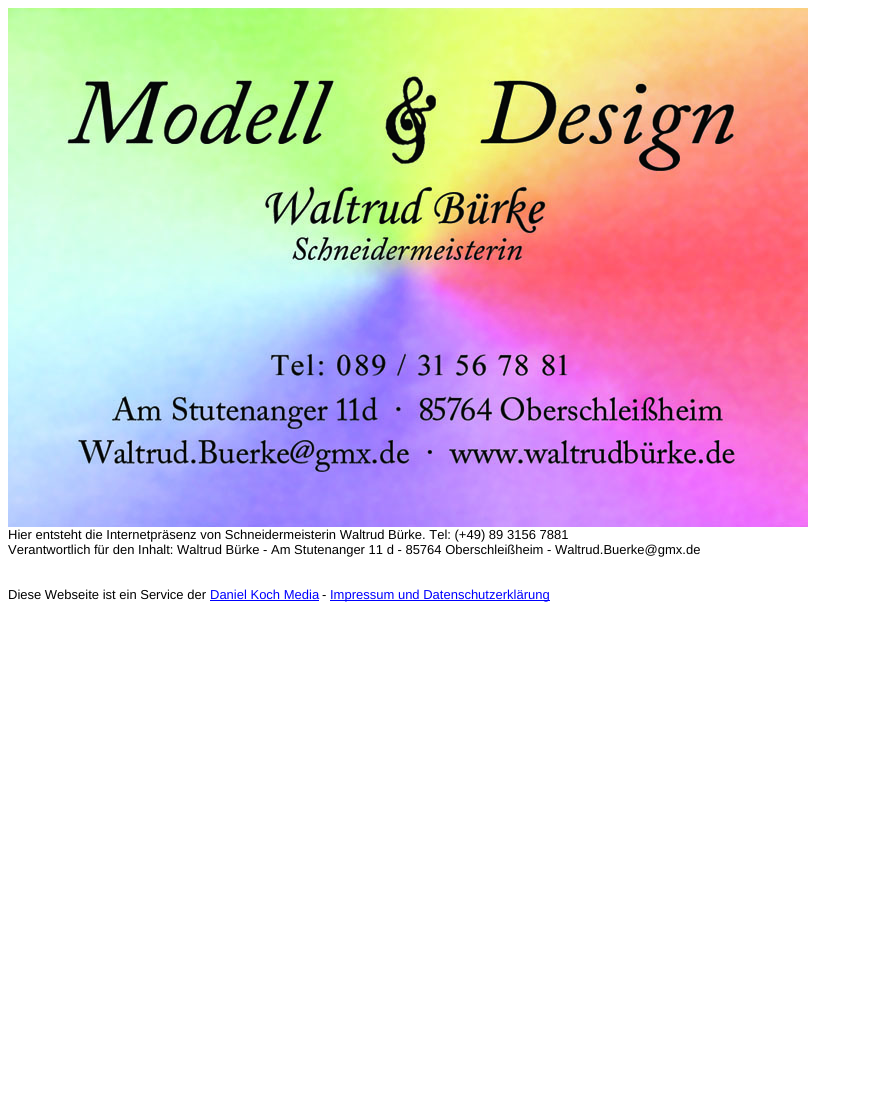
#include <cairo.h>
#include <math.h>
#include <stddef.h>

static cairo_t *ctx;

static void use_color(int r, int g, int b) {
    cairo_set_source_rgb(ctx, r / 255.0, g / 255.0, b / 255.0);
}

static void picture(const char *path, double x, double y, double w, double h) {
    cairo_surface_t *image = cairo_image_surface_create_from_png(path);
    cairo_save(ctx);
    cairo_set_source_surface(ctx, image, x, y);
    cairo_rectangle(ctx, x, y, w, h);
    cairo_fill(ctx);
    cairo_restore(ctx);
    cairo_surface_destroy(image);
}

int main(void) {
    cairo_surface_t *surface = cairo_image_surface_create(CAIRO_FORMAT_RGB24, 870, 1115);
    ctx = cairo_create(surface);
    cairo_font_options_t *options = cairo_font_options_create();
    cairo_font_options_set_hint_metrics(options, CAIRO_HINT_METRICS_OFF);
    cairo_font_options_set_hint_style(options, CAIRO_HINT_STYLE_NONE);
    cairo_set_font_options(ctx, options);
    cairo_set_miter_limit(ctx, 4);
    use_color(255, 255, 255);
    cairo_paint(ctx);
    picture("img1.png", 8, 8, 800, 519);
    cairo_select_font_face(ctx, "Liberation Sans", CAIRO_FONT_SLANT_NORMAL, CAIRO_FONT_WEIGHT_NORMAL);
    cairo_set_font_size(ctx, 13);
    use_color(0, 0, 0);
    cairo_move_to(ctx, 8, 539);
    cairo_show_text(ctx, "Hier entsteht die Internetpräsenz von Schneidermeisterin Waltrud Bürke. Tel: (+49) 89 3156 7881");
    cairo_move_to(ctx, 8, 554);
    cairo_show_text(ctx, "Verantwortlich für den Inhalt: Waltrud Bürke - Am Stutenanger 11 d - 85764 Oberschleißheim - Waltrud.Buerke@gmx.de");
    cairo_move_to(ctx, 8, 599);
    cairo_show_text(ctx, "Diese Webseite ist ein Service der");
    use_color(0, 0, 255);
    cairo_move_to(ctx, 210, 599);
    cairo_show_text(ctx, "Daniel Koch Media");
    cairo_rectangle(ctx, 210, 600, 109, 1);
    cairo_fill(ctx);
    use_color(0, 0, 0);
    cairo_move_to(ctx, 322, 599);
    cairo_show_text(ctx, "-");
    use_color(0, 0, 255);
    cairo_rectangle(ctx, 330, 600, 220, 1);
    cairo_fill(ctx);
    cairo_move_to(ctx, 330, 599);
    cairo_show_text(ctx, "Impressum und Datenschutzerklärung");
    cairo_surface_write_to_png(surface, "result.png");
    cairo_font_options_destroy(options);
    cairo_destroy(ctx);
    cairo_surface_destroy(surface);
    return 0;
}
